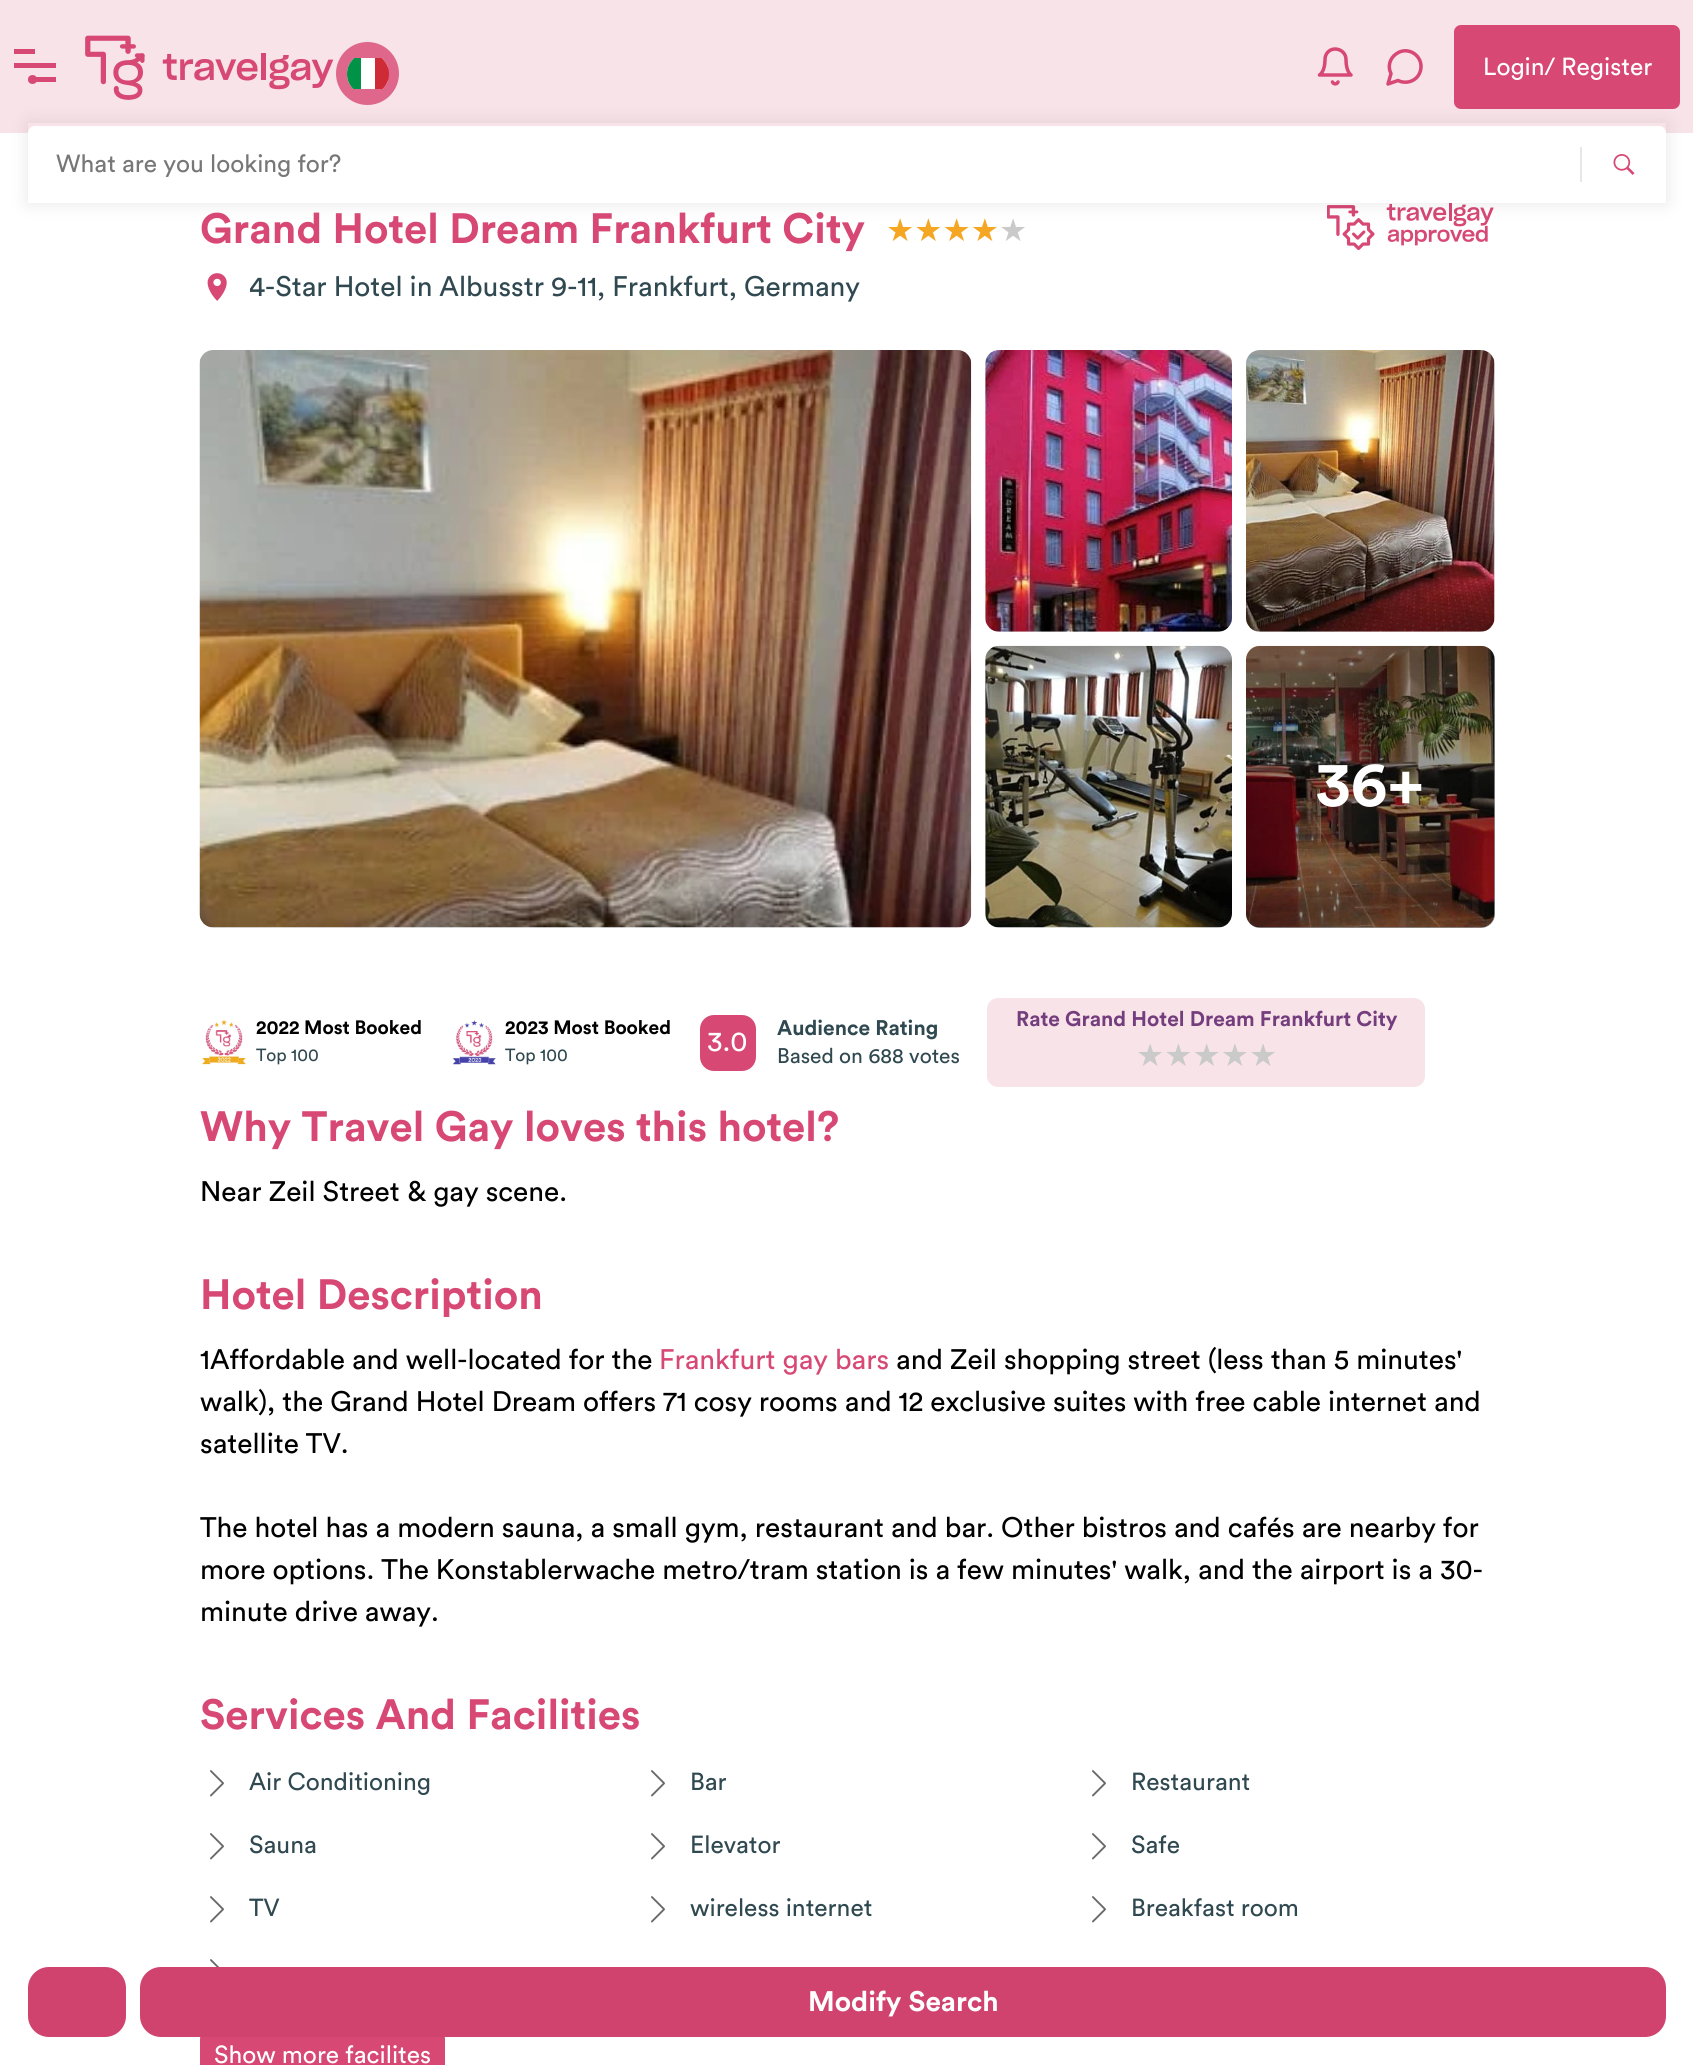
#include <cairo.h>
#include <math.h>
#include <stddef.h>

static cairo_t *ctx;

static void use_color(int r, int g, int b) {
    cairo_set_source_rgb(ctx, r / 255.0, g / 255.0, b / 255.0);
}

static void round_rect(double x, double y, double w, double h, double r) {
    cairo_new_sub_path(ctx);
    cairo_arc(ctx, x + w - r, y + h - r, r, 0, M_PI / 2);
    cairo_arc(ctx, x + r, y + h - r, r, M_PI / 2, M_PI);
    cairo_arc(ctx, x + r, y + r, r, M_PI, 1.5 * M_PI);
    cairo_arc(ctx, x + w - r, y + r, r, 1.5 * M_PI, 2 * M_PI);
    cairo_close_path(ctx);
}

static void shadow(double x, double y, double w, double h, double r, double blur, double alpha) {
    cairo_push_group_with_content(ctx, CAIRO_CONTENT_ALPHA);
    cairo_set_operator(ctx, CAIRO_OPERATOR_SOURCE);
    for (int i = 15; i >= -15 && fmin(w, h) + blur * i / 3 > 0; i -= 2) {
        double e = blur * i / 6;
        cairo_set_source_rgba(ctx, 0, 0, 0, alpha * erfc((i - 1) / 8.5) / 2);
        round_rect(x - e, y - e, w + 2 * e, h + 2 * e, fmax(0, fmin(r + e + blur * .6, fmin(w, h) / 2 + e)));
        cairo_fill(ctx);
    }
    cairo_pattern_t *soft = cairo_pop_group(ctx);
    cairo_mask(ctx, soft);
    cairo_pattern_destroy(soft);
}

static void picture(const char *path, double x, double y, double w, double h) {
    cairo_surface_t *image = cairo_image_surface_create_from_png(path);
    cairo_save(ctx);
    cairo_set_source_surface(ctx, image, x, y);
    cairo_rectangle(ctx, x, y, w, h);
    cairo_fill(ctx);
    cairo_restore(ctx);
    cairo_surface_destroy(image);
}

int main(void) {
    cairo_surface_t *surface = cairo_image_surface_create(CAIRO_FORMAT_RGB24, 1693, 2065);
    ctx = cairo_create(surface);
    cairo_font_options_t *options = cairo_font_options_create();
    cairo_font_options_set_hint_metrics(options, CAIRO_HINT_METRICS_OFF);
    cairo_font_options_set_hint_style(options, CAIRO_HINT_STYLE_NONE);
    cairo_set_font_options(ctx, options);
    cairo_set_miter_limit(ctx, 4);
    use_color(255, 255, 255);
    cairo_paint(ctx);
    use_color(248, 227, 232);
    cairo_rectangle(ctx, 0, 0, 1693, 133);
    cairo_fill(ctx);
    use_color(215, 72, 116);
    cairo_rectangle(ctx, 14, 49, 21, 5);
    cairo_fill(ctx);
    cairo_rectangle(ctx, 14, 63, 42, 5);
    cairo_fill(ctx);
    cairo_rectangle(ctx, 30, 77, 26, 5);
    cairo_fill(ctx);
    cairo_arc(ctx, 32.5, 79.5, 4.5, 0, 2 * M_PI);
    cairo_fill(ctx);
    picture("img1.png", 85, 35, 249, 65);
    use_color(222, 103, 139);
    cairo_arc(ctx, 367.5, 73.5, 31.5, 0, 2 * M_PI);
    cairo_fill(ctx);
    cairo_save(ctx);
    round_rect(347, 53, 42, 42, 21);
    cairo_clip(ctx);
    use_color(255, 255, 255);
    cairo_rectangle(ctx, 347, 58, 41, 31);
    cairo_fill(ctx);
    use_color(0, 146, 70);
    cairo_rectangle(ctx, 347, 58, 14, 31);
    cairo_fill(ctx);
    use_color(206, 43, 55);
    cairo_rectangle(ctx, 375, 58, 14, 31);
    cairo_fill(ctx);
    cairo_restore(ctx);
    cairo_new_path(ctx);
    cairo_move_to(ctx, 1325, 59.5);
    cairo_curve_to(ctx, 1325, 53.5, 1329.5, 49, 1335, 49);
    cairo_curve_to(ctx, 1341, 49, 1346, 53.5, 1346, 59.5);
    cairo_curve_to(ctx, 1346, 72, 1351, 75, 1351, 75);
    cairo_line_to(ctx, 1319.5, 75);
    cairo_curve_to(ctx, 1319.5, 75, 1325, 72, 1325, 59.5);
    cairo_move_to(ctx, 1332.5, 82);
    cairo_curve_to(ctx, 1333.5, 84.5, 1337, 84.5, 1338, 82);
    use_color(215, 72, 116);
    cairo_set_line_width(ctx, 3.5);
    cairo_set_line_cap(ctx, CAIRO_LINE_CAP_ROUND);
    cairo_set_line_join(ctx, CAIRO_LINE_JOIN_ROUND);
    cairo_stroke(ctx);
    cairo_new_path(ctx);
    cairo_move_to(ctx, 1398, 80.5);
    cairo_curve_to(ctx, 1405, 84, 1413.5, 82, 1418, 76);
    cairo_curve_to(ctx, 1422.5, 69.5, 1422, 61, 1416.5, 55.5);
    cairo_curve_to(ctx, 1411, 50, 1402.5, 49, 1396, 54);
    cairo_curve_to(ctx, 1389.5, 58.5, 1387.5, 67, 1391, 73.5);
    cairo_line_to(ctx, 1388, 84);
    cairo_close_path(ctx);
    cairo_stroke(ctx);
    round_rect(1454, 25, 226, 84, 7);
    cairo_fill(ctx);
    cairo_select_font_face(ctx, "Circular", CAIRO_FONT_SLANT_NORMAL, CAIRO_FONT_WEIGHT_NORMAL);
    cairo_set_font_size(ctx, 24.5);
    use_color(255, 255, 255);
    cairo_move_to(ctx, 1483, 75);
    cairo_show_text(ctx, "Login/ Register");
    picture("img4.png", 1327, 203, 167, 47);
    cairo_save(ctx);
    cairo_set_fill_rule(ctx, CAIRO_FILL_RULE_EVEN_ODD);
    cairo_new_path(ctx);
    cairo_move_to(ctx, 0, 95);
    cairo_line_to(ctx, 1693, 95);
    cairo_line_to(ctx, 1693, 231);
    cairo_line_to(ctx, 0, 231);
    cairo_close_path(ctx);
    cairo_move_to(ctx, 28, 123);
    cairo_line_to(ctx, 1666, 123);
    cairo_line_to(ctx, 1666, 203);
    cairo_line_to(ctx, 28, 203);
    cairo_close_path(ctx);
    cairo_clip(ctx);
    use_color(0, 0, 0);
    shadow(28, 123, 1638, 80, 0, 9, 0.1);
    cairo_restore(ctx);
    round_rect(28, 126, 1638, 77, 7);
    cairo_fill(ctx);
    use_color(229, 231, 235);
    cairo_rectangle(ctx, 1580, 147, 2, 35);
    cairo_fill(ctx);
    use_color(119, 119, 119);
    cairo_move_to(ctx, 56, 172);
    cairo_show_text(ctx, "What are you looking for?");
    picture("img2.png", 1613, 154, 22, 21);
    cairo_select_font_face(ctx, "Circular", CAIRO_FONT_SLANT_NORMAL, CAIRO_FONT_WEIGHT_BOLD);
    cairo_set_font_size(ctx, 42);
    use_color(215, 72, 116);
    cairo_move_to(ctx, 200, 243);
    cairo_show_text(ctx, "Grand Hotel Dream Frankfurt City");
    cairo_select_font_face(ctx, "DejaVu Sans", CAIRO_FONT_SLANT_NORMAL, CAIRO_FONT_WEIGHT_NORMAL);
    cairo_set_font_size(ctx, 31.5);
    use_color(245, 166, 35);
    cairo_move_to(ctx, 886, 241);
    cairo_show_text(ctx, "★★★★");
    use_color(202, 202, 202);
    cairo_move_to(ctx, 999, 241);
    cairo_show_text(ctx, "★");
    picture("img3.png", 207, 273, 20, 28);
    cairo_select_font_face(ctx, "Circular", CAIRO_FONT_SLANT_NORMAL, CAIRO_FONT_WEIGHT_NORMAL);
    cairo_set_font_size(ctx, 28);
    use_color(48, 73, 81);
    cairo_move_to(ctx, 249, 296);
    cairo_show_text(ctx, "4-Star Hotel in Albusstr 9-11, Frankfurt, Germany");
    use_color(241, 245, 249);
    round_rect(200, 350, 771, 578, 14);
    cairo_fill(ctx);
    picture("img5.png", 199, 350, 773, 578);
    round_rect(985, 350, 247, 282, 14);
    cairo_fill(ctx);
    picture("img6.png", 985, 350, 247, 282);
    round_rect(1246, 350, 249, 282, 14);
    cairo_fill(ctx);
    picture("img7.png", 1246, 350, 249, 282);
    round_rect(985, 646, 247, 282, 14);
    cairo_fill(ctx);
    picture("img8.png", 985, 645, 247, 283);
    round_rect(1246, 646, 249, 282, 14);
    cairo_fill(ctx);
    picture("img9.png", 1246, 645, 249, 283);
    cairo_set_source_rgba(ctx, 0, 0, 0, 0.4);
    round_rect(1246, 646, 249, 282, 14);
    cairo_fill(ctx);
    cairo_select_font_face(ctx, "Circular", CAIRO_FONT_SLANT_NORMAL, CAIRO_FONT_WEIGHT_BOLD);
    cairo_set_font_size(ctx, 63);
    use_color(255, 255, 255);
    cairo_move_to(ctx, 1316, 806);
    cairo_show_text(ctx, "36+");
    picture("img10.png", 202, 1019, 44, 46);
    cairo_set_font_size(ctx, 19.25);
    use_color(0, 0, 0);
    cairo_move_to(ctx, 256, 1034);
    cairo_show_text(ctx, "2022 Most Booked");
    cairo_select_font_face(ctx, "Circular", CAIRO_FONT_SLANT_NORMAL, CAIRO_FONT_WEIGHT_NORMAL);
    cairo_set_font_size(ctx, 17.5);
    use_color(48, 73, 81);
    cairo_move_to(ctx, 256, 1061);
    cairo_show_text(ctx, "Top 100");
    picture("img11.png", 452, 1020, 44, 45);
    cairo_select_font_face(ctx, "Circular", CAIRO_FONT_SLANT_NORMAL, CAIRO_FONT_WEIGHT_BOLD);
    cairo_set_font_size(ctx, 19.25);
    use_color(0, 0, 0);
    cairo_move_to(ctx, 505, 1034);
    cairo_show_text(ctx, "2023 Most Booked");
    cairo_select_font_face(ctx, "Circular", CAIRO_FONT_SLANT_NORMAL, CAIRO_FONT_WEIGHT_NORMAL);
    cairo_set_font_size(ctx, 17.5);
    use_color(48, 73, 81);
    cairo_move_to(ctx, 505, 1061);
    cairo_show_text(ctx, "Top 100");
    use_color(215, 72, 116);
    round_rect(700, 1015, 56, 56, 14);
    cairo_fill(ctx);
    cairo_set_font_size(ctx, 28);
    use_color(255, 255, 255);
    cairo_move_to(ctx, 707, 1051);
    cairo_show_text(ctx, "3.0");
    cairo_select_font_face(ctx, "Circular", CAIRO_FONT_SLANT_NORMAL, CAIRO_FONT_WEIGHT_BOLD);
    cairo_set_font_size(ctx, 21);
    use_color(48, 73, 81);
    cairo_move_to(ctx, 777, 1035);
    cairo_show_text(ctx, "Audience Rating");
    cairo_select_font_face(ctx, "Circular", CAIRO_FONT_SLANT_NORMAL, CAIRO_FONT_WEIGHT_NORMAL);
    cairo_move_to(ctx, 777, 1063);
    cairo_show_text(ctx, "Based on 688 votes");
    use_color(248, 227, 232);
    round_rect(987, 998, 438, 89, 11);
    cairo_fill(ctx);
    cairo_select_font_face(ctx, "Circular", CAIRO_FONT_SLANT_NORMAL, CAIRO_FONT_WEIGHT_BOLD);
    use_color(116, 61, 125);
    cairo_move_to(ctx, 1016, 1026);
    cairo_show_text(ctx, "Rate Grand Hotel Dream Frankfurt City");
    cairo_select_font_face(ctx, "DejaVu Sans", CAIRO_FONT_SLANT_NORMAL, CAIRO_FONT_WEIGHT_NORMAL);
    cairo_set_font_size(ctx, 31.5);
    use_color(202, 202, 202);
    cairo_move_to(ctx, 1136, 1066);
    cairo_show_text(ctx, "★★★★★");
    cairo_select_font_face(ctx, "Circular", CAIRO_FONT_SLANT_NORMAL, CAIRO_FONT_WEIGHT_BOLD);
    cairo_set_font_size(ctx, 42);
    use_color(215, 72, 116);
    cairo_move_to(ctx, 200, 1141);
    cairo_show_text(ctx, "Why Travel Gay loves this hotel?");
    cairo_select_font_face(ctx, "Circular", CAIRO_FONT_SLANT_NORMAL, CAIRO_FONT_WEIGHT_NORMAL);
    cairo_set_font_size(ctx, 28);
    use_color(0, 0, 0);
    cairo_move_to(ctx, 200, 1201);
    cairo_show_text(ctx, "Near Zeil Street & gay scene.");
    cairo_select_font_face(ctx, "Circular", CAIRO_FONT_SLANT_NORMAL, CAIRO_FONT_WEIGHT_BOLD);
    cairo_set_font_size(ctx, 42);
    use_color(215, 72, 116);
    cairo_move_to(ctx, 200, 1309);
    cairo_show_text(ctx, "Hotel Description");
    cairo_select_font_face(ctx, "Circular", CAIRO_FONT_SLANT_NORMAL, CAIRO_FONT_WEIGHT_NORMAL);
    cairo_set_font_size(ctx, 28);
    use_color(0, 0, 0);
    cairo_move_to(ctx, 200, 1369);
    cairo_show_text(ctx, "1Affordable and well-located for the");
    use_color(215, 72, 116);
    cairo_move_to(ctx, 659, 1369);
    cairo_show_text(ctx, "Frankfurt gay bars");
    use_color(0, 0, 0);
    cairo_move_to(ctx, 896, 1369);
    cairo_show_text(ctx, "and Zeil shopping street (less than 5 minutes'");
    cairo_move_to(ctx, 200, 1411);
    cairo_show_text(ctx, "walk), the Grand Hotel Dream offers 71 cosy rooms and 12 exclusive suites with free cable internet and");
    cairo_move_to(ctx, 200, 1453);
    cairo_show_text(ctx, "satellite TV.");
    cairo_move_to(ctx, 200, 1537);
    cairo_show_text(ctx, "The hotel has a modern sauna, a small gym, restaurant and bar. Other bistros and cafés are nearby for");
    cairo_move_to(ctx, 200, 1579);
    cairo_show_text(ctx, "more options. The Konstablerwache metro/tram station is a few minutes' walk, and the airport is a 30-");
    cairo_move_to(ctx, 200, 1621);
    cairo_show_text(ctx, "minute drive away.");
    cairo_select_font_face(ctx, "Circular", CAIRO_FONT_SLANT_NORMAL, CAIRO_FONT_WEIGHT_BOLD);
    cairo_set_font_size(ctx, 42);
    use_color(215, 72, 116);
    cairo_move_to(ctx, 200, 1729);
    cairo_show_text(ctx, "Services And Facilities");
    picture("img12.png", 210, 1770, 14, 27);
    cairo_select_font_face(ctx, "Circular", CAIRO_FONT_SLANT_NORMAL, CAIRO_FONT_WEIGHT_NORMAL);
    cairo_set_font_size(ctx, 24.5);
    use_color(48, 73, 81);
    cairo_move_to(ctx, 249, 1790);
    cairo_show_text(ctx, "Air Conditioning");
    picture("img12.png", 651, 1770, 14, 27);
    cairo_move_to(ctx, 690, 1790);
    cairo_show_text(ctx, "Bar");
    picture("img12.png", 1092, 1770, 14, 27);
    cairo_move_to(ctx, 1131, 1790);
    cairo_show_text(ctx, "Restaurant");
    picture("img12.png", 210, 1833, 14, 27);
    cairo_move_to(ctx, 249, 1853);
    cairo_show_text(ctx, "Sauna");
    picture("img12.png", 651, 1833, 14, 27);
    cairo_move_to(ctx, 690, 1853);
    cairo_show_text(ctx, "Elevator");
    picture("img12.png", 1092, 1833, 14, 27);
    cairo_move_to(ctx, 1131, 1853);
    cairo_show_text(ctx, "Safe");
    picture("img12.png", 210, 1896, 14, 27);
    cairo_move_to(ctx, 249, 1916);
    cairo_show_text(ctx, "TV");
    picture("img12.png", 651, 1896, 14, 27);
    cairo_move_to(ctx, 690, 1916);
    cairo_show_text(ctx, "wireless internet");
    picture("img12.png", 1092, 1896, 14, 27);
    cairo_move_to(ctx, 1131, 1916);
    cairo_show_text(ctx, "Breakfast room");
    picture("img13.png", 210, 1959, 10, 8);
    use_color(215, 72, 116);
    round_rect(200, 2032, 245, 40, 7);
    cairo_fill(ctx);
    use_color(255, 255, 255);
    cairo_move_to(ctx, 214, 2063);
    cairo_show_text(ctx, "Show more facilites");
    use_color(208, 67, 110);
    round_rect(28, 1967, 98, 70, 21);
    cairo_fill(ctx);
    round_rect(140, 1967, 1526, 70, 21);
    cairo_fill(ctx);
    cairo_select_font_face(ctx, "Circular", CAIRO_FONT_SLANT_NORMAL, CAIRO_FONT_WEIGHT_BOLD);
    cairo_set_font_size(ctx, 28);
    use_color(255, 255, 255);
    cairo_move_to(ctx, 808, 2011);
    cairo_show_text(ctx, "Modify Search");
    cairo_surface_write_to_png(surface, "result.png");
    cairo_font_options_destroy(options);
    cairo_destroy(ctx);
    cairo_surface_destroy(surface);
    return 0;
}
